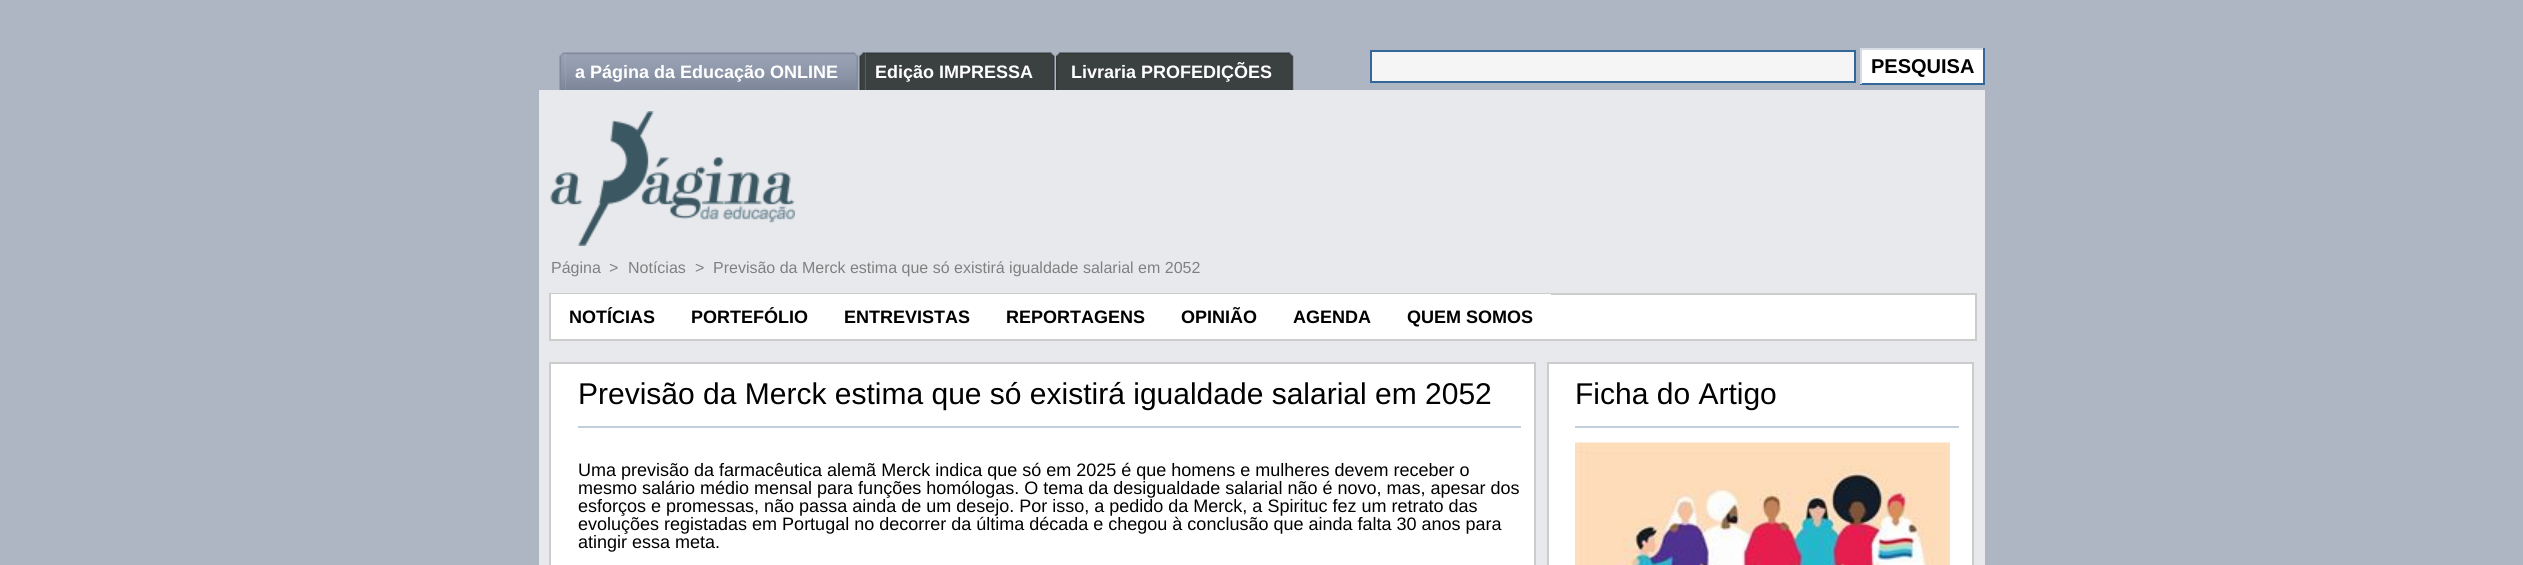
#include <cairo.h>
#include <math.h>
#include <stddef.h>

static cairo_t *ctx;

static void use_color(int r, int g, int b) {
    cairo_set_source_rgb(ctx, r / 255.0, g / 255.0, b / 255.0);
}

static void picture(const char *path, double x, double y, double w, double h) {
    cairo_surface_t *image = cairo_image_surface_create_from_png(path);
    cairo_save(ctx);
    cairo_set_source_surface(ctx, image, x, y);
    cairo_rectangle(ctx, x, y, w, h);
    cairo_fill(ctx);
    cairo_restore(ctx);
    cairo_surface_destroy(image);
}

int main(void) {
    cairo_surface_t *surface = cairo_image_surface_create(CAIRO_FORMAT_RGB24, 2523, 565);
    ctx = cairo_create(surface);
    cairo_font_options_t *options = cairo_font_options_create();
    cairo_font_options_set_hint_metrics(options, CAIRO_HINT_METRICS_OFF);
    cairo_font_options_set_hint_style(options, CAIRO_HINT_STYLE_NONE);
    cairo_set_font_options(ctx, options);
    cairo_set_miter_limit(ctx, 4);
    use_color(174, 182, 196);
    cairo_paint(ctx);
    picture("img1.png", 559, 52, 7, 38);
    picture("img2.png", 565, 52, 294, 38);
    cairo_select_font_face(ctx, "Liberation Sans", CAIRO_FONT_SLANT_NORMAL, CAIRO_FONT_WEIGHT_BOLD);
    cairo_set_font_size(ctx, 18);
    use_color(255, 255, 255);
    cairo_move_to(ctx, 575, 78);
    cairo_show_text(ctx, "a Página da Educação ONLINE");
    picture("img3.png", 859, 52, 7, 38);
    picture("img4.png", 865, 52, 190, 38);
    cairo_move_to(ctx, 875, 78);
    cairo_show_text(ctx, "Edição IMPRESSA");
    picture("img5.png", 1056, 52, 6, 38);
    picture("img6.png", 1062, 52, 232, 38);
    cairo_move_to(ctx, 1071, 78);
    cairo_show_text(ctx, "Livraria PROFEDIÇÕES");
    use_color(245, 245, 245);
    cairo_rectangle(ctx, 1371, 51, 484, 31);
    cairo_fill_preserve(ctx);
    use_color(51, 102, 153);
    cairo_stroke(ctx);
    use_color(255, 255, 255);
    cairo_rectangle(ctx, 1862, 50, 121, 33);
    cairo_fill(ctx);
    use_color(213, 220, 228);
    cairo_rectangle(ctx, 1860, 48, 125, 2);
    cairo_fill(ctx);
    use_color(51, 102, 153);
    cairo_rectangle(ctx, 1983, 48, 2, 36);
    cairo_fill(ctx);
    cairo_rectangle(ctx, 1860, 83, 125, 2);
    cairo_fill(ctx);
    use_color(213, 220, 228);
    cairo_rectangle(ctx, 1860, 48, 2, 36);
    cairo_fill(ctx);
    cairo_set_font_size(ctx, 20);
    use_color(0, 0, 0);
    cairo_move_to(ctx, 1871, 73);
    cairo_show_text(ctx, "PESQUISA");
    use_color(231, 233, 237);
    cairo_rectangle(ctx, 539, 90, 1446, 475);
    cairo_fill(ctx);
    picture("img7.png", 550, 111, 245, 135);
    cairo_select_font_face(ctx, "Liberation Sans", CAIRO_FONT_SLANT_NORMAL, CAIRO_FONT_WEIGHT_NORMAL);
    cairo_set_font_size(ctx, 16);
    use_color(128, 128, 128);
    cairo_move_to(ctx, 551, 273);
    cairo_show_text(ctx, "Página");
    cairo_move_to(ctx, 609, 273);
    cairo_show_text(ctx, ">");
    cairo_move_to(ctx, 628, 273);
    cairo_show_text(ctx, "Notícias");
    cairo_move_to(ctx, 695, 273);
    cairo_show_text(ctx, ">");
    cairo_move_to(ctx, 713, 273);
    cairo_show_text(ctx, "Previsão da Merck estima que só existirá igualdade salarial em 2052");
    use_color(255, 255, 255);
    cairo_rectangle(ctx, 1551, 295, 424, 44);
    cairo_fill(ctx);
    cairo_rectangle(ctx, 550, 294, 1426, 46);
    use_color(204, 204, 204);
    cairo_stroke(ctx);
    use_color(255, 255, 255);
    cairo_rectangle(ctx, 551, 294, 1000, 45);
    cairo_fill(ctx);
    cairo_select_font_face(ctx, "Liberation Sans", CAIRO_FONT_SLANT_NORMAL, CAIRO_FONT_WEIGHT_BOLD);
    cairo_set_font_size(ctx, 18);
    use_color(0, 0, 0);
    cairo_move_to(ctx, 569, 323);
    cairo_show_text(ctx, "NOTÍCIAS");
    cairo_move_to(ctx, 691, 323);
    cairo_show_text(ctx, "PORTEFÓLIO");
    cairo_move_to(ctx, 844, 323);
    cairo_show_text(ctx, "ENTREVISTAS");
    cairo_move_to(ctx, 1006, 323);
    cairo_show_text(ctx, "REPORTAGENS");
    cairo_move_to(ctx, 1181, 323);
    cairo_show_text(ctx, "OPINIÃO");
    cairo_move_to(ctx, 1293, 323);
    cairo_show_text(ctx, "AGENDA");
    cairo_move_to(ctx, 1407, 323);
    cairo_show_text(ctx, "QUEM SOMOS");
    use_color(255, 255, 255);
    cairo_rectangle(ctx, 550, 363, 985, 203);
    cairo_fill_preserve(ctx);
    use_color(204, 204, 204);
    cairo_stroke(ctx);
    cairo_select_font_face(ctx, "Liberation Sans", CAIRO_FONT_SLANT_NORMAL, CAIRO_FONT_WEIGHT_NORMAL);
    cairo_set_font_size(ctx, 30);
    use_color(0, 0, 0);
    cairo_move_to(ctx, 578, 404);
    cairo_show_text(ctx, "Previsão da Merck estima que só existirá igualdade salarial em 2052");
    use_color(194, 206, 220);
    cairo_rectangle(ctx, 578, 426, 943, 2);
    cairo_fill(ctx);
    cairo_set_font_size(ctx, 18);
    use_color(0, 0, 0);
    cairo_move_to(ctx, 578, 476);
    cairo_show_text(ctx, "Uma previsão da farmacêutica alemã Merck indica que só em 2025 é que homens e mulheres devem receber o");
    cairo_move_to(ctx, 578, 494);
    cairo_show_text(ctx, "mesmo salário médio mensal para funções homólogas. O tema da desigualdade salarial não é novo, mas, apesar dos");
    cairo_move_to(ctx, 578, 512);
    cairo_show_text(ctx, "esforços e promessas, não passa ainda de um desejo. Por isso, a pedido da Merck, a Spirituc fez um retrato das");
    cairo_move_to(ctx, 578, 530);
    cairo_show_text(ctx, "evoluções registadas em Portugal no decorrer da última década e chegou à conclusão que ainda falta 30 anos para");
    cairo_move_to(ctx, 578, 548);
    cairo_show_text(ctx, "atingir essa meta.");
    use_color(255, 255, 255);
    cairo_rectangle(ctx, 1548, 363, 425, 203);
    cairo_fill_preserve(ctx);
    use_color(204, 204, 204);
    cairo_stroke(ctx);
    cairo_set_font_size(ctx, 30);
    use_color(0, 0, 0);
    cairo_move_to(ctx, 1575, 404);
    cairo_show_text(ctx, "Ficha do Artigo");
    use_color(194, 206, 220);
    cairo_rectangle(ctx, 1575, 426, 384, 2);
    cairo_fill(ctx);
    picture("img8.png", 1575, 442, 375, 123);
    cairo_surface_write_to_png(surface, "result.png");
    cairo_font_options_destroy(options);
    cairo_destroy(ctx);
    cairo_surface_destroy(surface);
    return 0;
}
